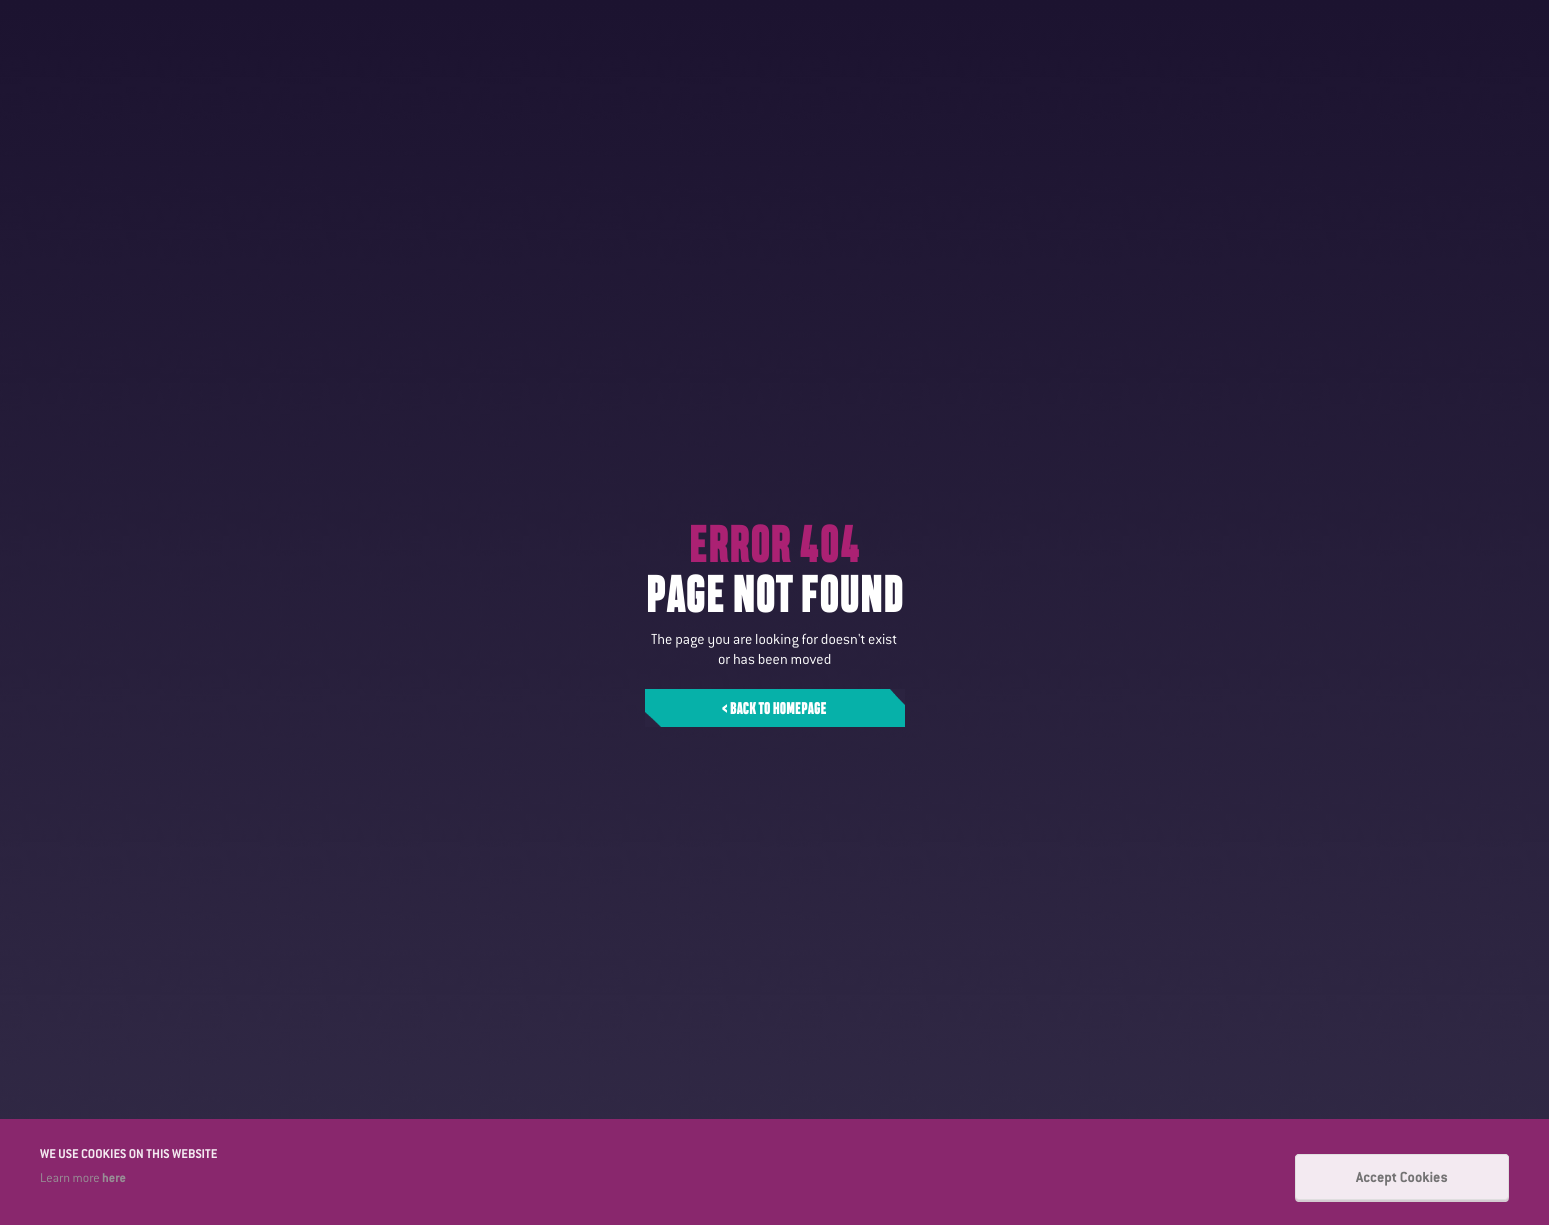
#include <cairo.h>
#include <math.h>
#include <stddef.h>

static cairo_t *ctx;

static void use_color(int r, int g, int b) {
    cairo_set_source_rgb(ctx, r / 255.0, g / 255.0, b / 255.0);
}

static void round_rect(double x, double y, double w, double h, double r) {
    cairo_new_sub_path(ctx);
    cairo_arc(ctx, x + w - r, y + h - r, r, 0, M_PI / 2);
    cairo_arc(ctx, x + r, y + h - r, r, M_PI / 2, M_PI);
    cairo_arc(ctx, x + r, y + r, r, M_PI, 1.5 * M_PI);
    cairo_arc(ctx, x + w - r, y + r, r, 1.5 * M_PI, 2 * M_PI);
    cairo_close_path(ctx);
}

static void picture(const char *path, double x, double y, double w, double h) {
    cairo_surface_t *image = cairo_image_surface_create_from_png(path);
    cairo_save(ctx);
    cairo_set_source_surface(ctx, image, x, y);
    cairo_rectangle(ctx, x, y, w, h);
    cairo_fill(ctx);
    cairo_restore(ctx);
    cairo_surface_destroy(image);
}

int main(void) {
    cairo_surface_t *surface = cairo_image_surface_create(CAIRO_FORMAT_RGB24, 1549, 1225);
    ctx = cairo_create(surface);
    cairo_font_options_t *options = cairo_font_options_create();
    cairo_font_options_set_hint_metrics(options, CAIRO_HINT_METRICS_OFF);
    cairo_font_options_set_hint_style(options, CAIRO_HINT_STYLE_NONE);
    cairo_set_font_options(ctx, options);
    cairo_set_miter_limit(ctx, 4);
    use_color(255, 255, 255);
    cairo_paint(ctx);
    picture("img1.png", 0, 0, 1549, 1225);
    cairo_select_font_face(ctx, "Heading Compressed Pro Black", CAIRO_FONT_SLANT_NORMAL, CAIRO_FONT_WEIGHT_NORMAL);
    cairo_set_font_size(ctx, 50);
    use_color(171, 33, 115);
    cairo_move_to(ctx, 689, 562);
    cairo_show_text(ctx, "ERROR 404");
    use_color(255, 255, 255);
    cairo_move_to(ctx, 646, 612);
    cairo_show_text(ctx, "PAGE NOT FOUND");
    cairo_select_font_face(ctx, "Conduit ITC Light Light", CAIRO_FONT_SLANT_NORMAL, CAIRO_FONT_WEIGHT_NORMAL);
    cairo_set_font_size(ctx, 16);
    cairo_move_to(ctx, 651, 644);
    cairo_show_text(ctx, "The page you are looking for doesn't exist");
    cairo_move_to(ctx, 718, 664);
    cairo_show_text(ctx, "or has been moved");
    use_color(6, 177, 169);
    cairo_rectangle(ctx, 645, 689, 260, 38);
    cairo_fill(ctx);
    picture("img2.png", 645, 689, 260, 38);
    cairo_select_font_face(ctx, "Heading Compressed Pro Black", CAIRO_FONT_SLANT_NORMAL, CAIRO_FONT_WEIGHT_NORMAL);
    use_color(255, 255, 255);
    cairo_move_to(ctx, 722, 714);
    cairo_show_text(ctx, "< BACK TO HOMEPAGE");
    cairo_set_source_rgba(ctx, 0.573, 0.153, 0.443, 0.9);
    cairo_rectangle(ctx, 0, 1119, 1549, 106);
    cairo_fill(ctx);
    cairo_select_font_face(ctx, "Conduit ITC Light", CAIRO_FONT_SLANT_NORMAL, CAIRO_FONT_WEIGHT_BOLD);
    cairo_set_font_size(ctx, 14);
    use_color(243, 233, 240);
    cairo_move_to(ctx, 40, 1158);
    cairo_show_text(ctx, "WE USE COOKIES ON THIS WEBSITE");
    cairo_select_font_face(ctx, "Conduit ITC Light Light", CAIRO_FONT_SLANT_NORMAL, CAIRO_FONT_WEIGHT_NORMAL);
    use_color(151, 142, 149);
    cairo_move_to(ctx, 40, 1182);
    cairo_show_text(ctx, "Learn more");
    cairo_select_font_face(ctx, "Conduit ITC Light", CAIRO_FONT_SLANT_NORMAL, CAIRO_FONT_WEIGHT_BOLD);
    cairo_move_to(ctx, 102, 1182);
    cairo_show_text(ctx, "here");
    use_color(213, 203, 210);
    cairo_new_path(ctx);
    cairo_move_to(ctx, 1295, 1196);
    cairo_curve_to(ctx, 1295, 1199, 1295, 1201, 1298, 1202);
    cairo_line_to(ctx, 1506, 1202);
    cairo_curve_to(ctx, 1509, 1201, 1509, 1199, 1509, 1196);
    cairo_curve_to(ctx, 1509, 1198, 1507, 1200, 1505, 1200);
    cairo_line_to(ctx, 1299, 1200);
    cairo_curve_to(ctx, 1297, 1200, 1295, 1198, 1295, 1196);
    cairo_close_path(ctx);
    cairo_fill(ctx);
    cairo_set_source_rgba(ctx, 1, 1, 1, 0.9);
    round_rect(1295, 1154, 214, 46, 4);
    cairo_fill(ctx);
    round_rect(1295.5, 1154.5, 213, 45, 3.5);
    cairo_set_source_rgba(ctx, 0.867, 0.867, 0.867, 0.9);
    cairo_set_line_width(ctx, 1);
    cairo_stroke(ctx);
    cairo_set_font_size(ctx, 16);
    use_color(116, 115, 116);
    cairo_move_to(ctx, 1356, 1182);
    cairo_show_text(ctx, "Accept Cookies");
    cairo_surface_write_to_png(surface, "result.png");
    cairo_font_options_destroy(options);
    cairo_destroy(ctx);
    cairo_surface_destroy(surface);
    return 0;
}
